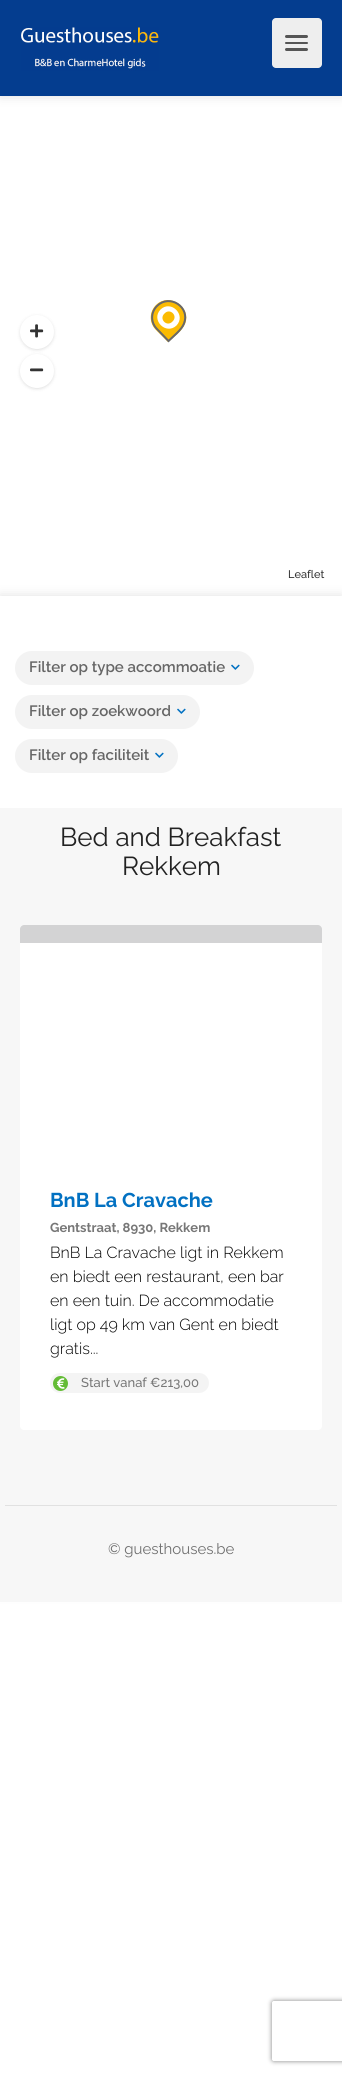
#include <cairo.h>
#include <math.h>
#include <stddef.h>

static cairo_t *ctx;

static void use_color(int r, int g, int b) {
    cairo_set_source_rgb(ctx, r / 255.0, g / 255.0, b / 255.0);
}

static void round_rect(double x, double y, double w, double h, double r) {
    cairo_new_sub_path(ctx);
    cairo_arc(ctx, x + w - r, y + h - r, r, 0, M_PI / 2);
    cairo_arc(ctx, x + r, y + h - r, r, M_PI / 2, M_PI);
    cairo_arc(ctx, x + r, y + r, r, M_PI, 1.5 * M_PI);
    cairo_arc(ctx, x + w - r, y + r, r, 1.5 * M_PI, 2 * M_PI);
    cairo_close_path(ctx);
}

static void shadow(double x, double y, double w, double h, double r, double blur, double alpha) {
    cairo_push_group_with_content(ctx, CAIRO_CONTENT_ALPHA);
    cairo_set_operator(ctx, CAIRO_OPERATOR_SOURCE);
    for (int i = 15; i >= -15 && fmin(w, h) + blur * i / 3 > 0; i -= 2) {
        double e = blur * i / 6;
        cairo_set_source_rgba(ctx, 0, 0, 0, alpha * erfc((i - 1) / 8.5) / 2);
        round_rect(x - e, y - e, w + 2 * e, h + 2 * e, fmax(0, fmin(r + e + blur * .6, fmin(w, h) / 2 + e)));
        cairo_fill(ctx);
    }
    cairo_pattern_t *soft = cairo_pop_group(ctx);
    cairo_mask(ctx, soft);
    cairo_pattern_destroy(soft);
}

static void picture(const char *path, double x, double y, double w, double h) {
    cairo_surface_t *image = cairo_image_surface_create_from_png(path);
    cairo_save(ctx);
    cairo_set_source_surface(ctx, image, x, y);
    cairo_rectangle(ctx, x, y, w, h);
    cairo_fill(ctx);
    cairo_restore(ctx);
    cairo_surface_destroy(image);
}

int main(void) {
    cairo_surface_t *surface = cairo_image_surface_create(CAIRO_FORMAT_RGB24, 342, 2075);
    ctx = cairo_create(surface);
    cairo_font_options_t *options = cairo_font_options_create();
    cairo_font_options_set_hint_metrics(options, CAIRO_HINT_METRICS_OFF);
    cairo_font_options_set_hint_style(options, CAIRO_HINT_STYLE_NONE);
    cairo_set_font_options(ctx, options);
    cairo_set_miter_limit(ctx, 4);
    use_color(255, 255, 255);
    cairo_paint(ctx);
    use_color(0, 0, 0);
    shadow(0, 0, 342, 96, 0, 6, 0.12);
    use_color(4, 61, 143);
    cairo_rectangle(ctx, 0, 0, 342, 96);
    cairo_fill(ctx);
    picture("img1.png", 21, 27, 138, 44);
    use_color(238, 238, 238);
    round_rect(272, 18, 50, 50, 4);
    cairo_fill(ctx);
    use_color(85, 85, 85);
    round_rect(285, 48, 23, 3, 1.5);
    cairo_fill(ctx);
    round_rect(285, 35, 23, 3, 1.5);
    cairo_fill(ctx);
    round_rect(285, 42, 23, 2, 1);
    cairo_fill(ctx);
    use_color(251, 187, 2);
    cairo_new_path(ctx);
    cairo_move_to(ctx, 156, 305);
    cairo_curve_to(ctx, 169, 292, 192, 307, 185, 324);
    cairo_curve_to(ctx, 182, 331, 174, 337, 168, 342);
    cairo_line_to(ctx, 156, 330);
    cairo_curve_to(ctx, 149, 323, 149, 312, 156, 305);
    cairo_close_path(ctx);
    cairo_fill(ctx);
    cairo_new_path(ctx);
    cairo_move_to(ctx, 157, 306);
    cairo_curve_to(ctx, 169.5, 293.5, 190.5, 307, 184, 323.5);
    cairo_curve_to(ctx, 181.5, 330, 173.5, 336, 168.5, 341);
    cairo_line_to(ctx, 157, 329);
    cairo_curve_to(ctx, 150.5, 322.5, 150.5, 312.5, 157, 306);
    cairo_close_path(ctx);
    use_color(102, 103, 107);
    cairo_stroke(ctx);
    use_color(255, 255, 255);
    cairo_new_path(ctx);
    cairo_move_to(ctx, 160.5, 309.5);
    cairo_curve_to(ctx, 171, 299.5, 186.5, 315, 176.5, 325.5);
    cairo_curve_to(ctx, 166, 335.5, 150.5, 320, 160.5, 309.5);
    cairo_close_path(ctx);
    cairo_fill(ctx);
    use_color(251, 187, 2);
    cairo_new_path(ctx);
    cairo_move_to(ctx, 164.5, 313.5);
    cairo_curve_to(ctx, 170, 307.5, 178.5, 316, 172.5, 321.5);
    cairo_curve_to(ctx, 167, 327.5, 158.5, 319, 164.5, 313.5);
    cairo_close_path(ctx);
    cairo_fill(ctx);
    use_color(0, 0, 0);
    shadow(21, 317, 32, 32, 16, 2, 0.2);
    use_color(255, 255, 255);
    cairo_arc(ctx, 37, 332, 17, 0, 2 * M_PI);
    cairo_fill(ctx);
    picture("img2.png", 30, 324, 14, 14);
    use_color(0, 0, 0);
    shadow(21, 356, 32, 32, 16, 2, 0.2);
    use_color(255, 255, 255);
    cairo_arc(ctx, 37, 371, 17, 0, 2 * M_PI);
    cairo_fill(ctx);
    picture("img3.png", 30, 368, 14, 4);
    cairo_select_font_face(ctx, "Raleway Medium", CAIRO_FONT_SLANT_NORMAL, CAIRO_FONT_WEIGHT_NORMAL);
    cairo_set_font_size(ctx, 11);
    use_color(51, 51, 51);
    cairo_move_to(ctx, 288, 578);
    cairo_show_text(ctx, "Leaflet");
    use_color(0, 0, 0);
    shadow(0, 596, 342, 997, 0, 6, 0.12);
    use_color(247, 247, 247);
    cairo_rectangle(ctx, 0, 808, 342, 784);
    cairo_fill(ctx);
    use_color(255, 255, 255);
    cairo_rectangle(ctx, 0, 596, 342, 212);
    cairo_fill(ctx);
    use_color(243, 243, 243);
    round_rect(15, 651, 239, 34, 17);
    cairo_fill(ctx);
    cairo_select_font_face(ctx, "Raleway SemiBold", CAIRO_FONT_SLANT_NORMAL, CAIRO_FONT_WEIGHT_NORMAL);
    cairo_set_font_size(ctx, 15);
    use_color(102, 102, 102);
    cairo_move_to(ctx, 29, 672);
    cairo_show_text(ctx, "Filter op type accommoatie");
    picture("img4.png", 231, 664, 9, 6);
    use_color(243, 243, 243);
    round_rect(15, 695, 185, 34, 17);
    cairo_fill(ctx);
    use_color(102, 102, 102);
    cairo_move_to(ctx, 29, 716);
    cairo_show_text(ctx, "Filter op zoekwoord");
    picture("img4.png", 177, 708, 9, 6);
    use_color(243, 243, 243);
    round_rect(15, 739, 163, 34, 17);
    cairo_fill(ctx);
    use_color(102, 102, 102);
    cairo_move_to(ctx, 29, 760);
    cairo_show_text(ctx, "Filter op faciliteit");
    picture("img4.png", 155, 752, 9, 6);
    cairo_select_font_face(ctx, "Raleway", CAIRO_FONT_SLANT_NORMAL, CAIRO_FONT_WEIGHT_NORMAL);
    cairo_set_font_size(ctx, 26);
    use_color(34, 34, 34);
    cairo_move_to(ctx, 60, 846);
    cairo_show_text(ctx, "Bed and Breakfast");
    cairo_move_to(ctx, 122, 875);
    cairo_show_text(ctx, "Rekkem");
    use_color(255, 255, 255);
    round_rect(20, 925, 302, 505, 4);
    cairo_fill(ctx);
    cairo_set_source_rgba(ctx, 0.153, 0.153, 0.161, 0.2);
    cairo_new_path(ctx);
    cairo_move_to(ctx, 24, 925);
    cairo_line_to(ctx, 318, 925);
    cairo_curve_to(ctx, 320, 925, 322, 927, 322, 929);
    cairo_line_to(ctx, 322, 943);
    cairo_line_to(ctx, 20, 943);
    cairo_line_to(ctx, 20, 929);
    cairo_curve_to(ctx, 20, 927, 22, 925, 24, 925);
    cairo_close_path(ctx);
    cairo_fill(ctx);
    cairo_select_font_face(ctx, "Raleway", CAIRO_FONT_SLANT_NORMAL, CAIRO_FONT_WEIGHT_BOLD);
    cairo_set_font_size(ctx, 20);
    use_color(2, 113, 194);
    cairo_move_to(ctx, 50, 1207);
    cairo_show_text(ctx, "BnB La Cravache");
    cairo_set_font_size(ctx, 13);
    use_color(119, 119, 119);
    cairo_move_to(ctx, 50, 1232);
    cairo_show_text(ctx, "Gentstraat, 8930, Rekkem");
    cairo_select_font_face(ctx, "Raleway Light", CAIRO_FONT_SLANT_NORMAL, CAIRO_FONT_WEIGHT_NORMAL);
    cairo_set_font_size(ctx, 16);
    use_color(0, 0, 0);
    cairo_move_to(ctx, 50, 1258);
    cairo_show_text(ctx, "BnB La Cravache ligt in Rekkem");
    cairo_move_to(ctx, 50, 1282);
    cairo_show_text(ctx, "en biedt een restaurant, een bar");
    cairo_move_to(ctx, 50, 1306);
    cairo_show_text(ctx, "en een tuin. De accommodatie");
    cairo_move_to(ctx, 50, 1330);
    cairo_show_text(ctx, "ligt op 49 km van Gent en biedt");
    cairo_move_to(ctx, 50, 1354);
    cairo_show_text(ctx, "gratis...");
    use_color(244, 244, 244);
    round_rect(50, 1373, 159, 20, 10);
    cairo_fill(ctx);
    use_color(100, 188, 54);
    cairo_arc(ctx, 60.5, 1383.5, 7.5, 0, 2 * M_PI);
    cairo_fill(ctx);
    picture("img5.png", 57, 1378, 8, 11);
    cairo_select_font_face(ctx, "Raleway Medium", CAIRO_FONT_SLANT_NORMAL, CAIRO_FONT_WEIGHT_NORMAL);
    cairo_set_font_size(ctx, 13);
    use_color(119, 119, 119);
    cairo_move_to(ctx, 81, 1387);
    cairo_show_text(ctx, "Start vanaf €213,00");
    use_color(225, 225, 225);
    cairo_rectangle(ctx, 5, 1505, 332, 1);
    cairo_fill(ctx);
    cairo_select_font_face(ctx, "Raleway", CAIRO_FONT_SLANT_NORMAL, CAIRO_FONT_WEIGHT_NORMAL);
    cairo_set_font_size(ctx, 15);
    use_color(112, 112, 112);
    cairo_move_to(ctx, 108, 1554);
    cairo_show_text(ctx, "© guesthouses.be");
    use_color(247, 247, 247);
    cairo_new_path(ctx);
    cairo_move_to(ctx, -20, 1581);
    cairo_line_to(ctx, -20, 1602);
    cairo_line_to(ctx, 342, 1602);
    cairo_line_to(ctx, 342, 1592);
    cairo_line_to(ctx, 0, 1592);
    cairo_line_to(ctx, 0, 1591);
    cairo_line_to(ctx, 342, 1591);
    cairo_line_to(ctx, 342, 1581);
    cairo_close_path(ctx);
    cairo_fill(ctx);
    cairo_save(ctx);
    cairo_set_fill_rule(ctx, CAIRO_FILL_RULE_EVEN_ODD);
    cairo_new_path(ctx);
    cairo_move_to(ctx, 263, 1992);
    cairo_line_to(ctx, 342, 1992);
    cairo_line_to(ctx, 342, 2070);
    cairo_line_to(ctx, 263, 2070);
    cairo_close_path(ctx);
    cairo_move_to(ctx, 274, 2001);
    cairo_line_to(ctx, 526, 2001);
    cairo_curve_to(ctx, 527, 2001, 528, 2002, 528, 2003);
    cairo_line_to(ctx, 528, 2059);
    cairo_curve_to(ctx, 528, 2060, 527, 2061, 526, 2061);
    cairo_line_to(ctx, 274, 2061);
    cairo_curve_to(ctx, 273, 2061, 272, 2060, 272, 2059);
    cairo_line_to(ctx, 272, 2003);
    cairo_curve_to(ctx, 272, 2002, 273, 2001, 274, 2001);
    cairo_close_path(ctx);
    cairo_clip(ctx);
    use_color(128, 128, 128);
    shadow(272, 2001, 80, 60, 2, 2.5, 1);
    cairo_restore(ctx);
    cairo_surface_write_to_png(surface, "result.png");
    cairo_font_options_destroy(options);
    cairo_destroy(ctx);
    cairo_surface_destroy(surface);
    return 0;
}
